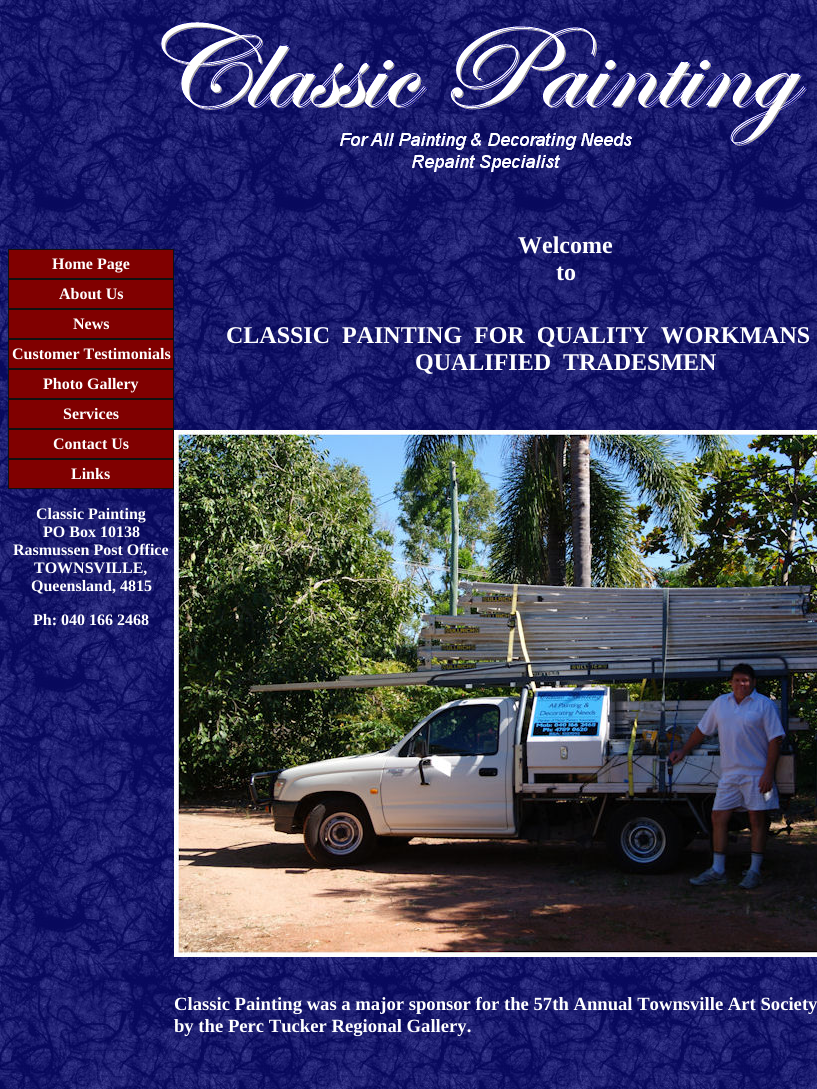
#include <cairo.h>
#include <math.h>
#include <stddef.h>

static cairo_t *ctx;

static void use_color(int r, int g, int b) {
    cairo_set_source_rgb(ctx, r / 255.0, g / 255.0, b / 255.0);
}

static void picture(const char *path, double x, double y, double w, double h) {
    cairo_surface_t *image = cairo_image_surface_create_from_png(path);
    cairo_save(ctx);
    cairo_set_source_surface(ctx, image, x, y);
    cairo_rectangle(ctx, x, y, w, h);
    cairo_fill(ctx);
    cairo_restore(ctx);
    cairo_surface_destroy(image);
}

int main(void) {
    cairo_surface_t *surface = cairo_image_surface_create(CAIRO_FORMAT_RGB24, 817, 1089);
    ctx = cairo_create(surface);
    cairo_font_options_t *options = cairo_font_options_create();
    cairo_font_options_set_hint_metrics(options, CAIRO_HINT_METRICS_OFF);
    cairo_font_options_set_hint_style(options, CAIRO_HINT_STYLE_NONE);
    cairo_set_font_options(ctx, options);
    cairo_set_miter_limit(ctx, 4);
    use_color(255, 255, 255);
    cairo_paint(ctx);
    picture("img1.png", 0, 0, 817, 1089);
    picture("img2.png", 161, 22, 646, 150);
    use_color(17, 17, 17);
    cairo_rectangle(ctx, 8, 249, 166, 1);
    cairo_fill(ctx);
    cairo_rectangle(ctx, 173, 249, 1, 30);
    cairo_fill(ctx);
    cairo_rectangle(ctx, 8, 278, 166, 2);
    cairo_fill(ctx);
    cairo_rectangle(ctx, 8, 249, 1, 30);
    cairo_fill(ctx);
    use_color(128, 0, 0);
    cairo_rectangle(ctx, 9, 250, 164, 28);
    cairo_fill(ctx);
    cairo_select_font_face(ctx, "Liberation Serif", CAIRO_FONT_SLANT_NORMAL, CAIRO_FONT_WEIGHT_BOLD);
    cairo_set_font_size(ctx, 16);
    use_color(255, 255, 255);
    cairo_move_to(ctx, 52, 269);
    cairo_show_text(ctx, "Home Page");
    use_color(17, 17, 17);
    cairo_rectangle(ctx, 173, 279, 1, 30);
    cairo_fill(ctx);
    cairo_rectangle(ctx, 8, 308, 166, 2);
    cairo_fill(ctx);
    cairo_rectangle(ctx, 8, 279, 1, 30);
    cairo_fill(ctx);
    use_color(128, 0, 0);
    cairo_rectangle(ctx, 9, 280, 164, 28);
    cairo_fill(ctx);
    use_color(255, 255, 255);
    cairo_move_to(ctx, 59, 299);
    cairo_show_text(ctx, "About Us");
    use_color(17, 17, 17);
    cairo_rectangle(ctx, 173, 309, 1, 30);
    cairo_fill(ctx);
    cairo_rectangle(ctx, 8, 338, 166, 2);
    cairo_fill(ctx);
    cairo_rectangle(ctx, 8, 309, 1, 30);
    cairo_fill(ctx);
    use_color(128, 0, 0);
    cairo_rectangle(ctx, 9, 310, 164, 28);
    cairo_fill(ctx);
    use_color(255, 255, 255);
    cairo_move_to(ctx, 73, 329);
    cairo_show_text(ctx, "News");
    use_color(17, 17, 17);
    cairo_rectangle(ctx, 173, 339, 1, 30);
    cairo_fill(ctx);
    cairo_rectangle(ctx, 8, 368, 166, 2);
    cairo_fill(ctx);
    cairo_rectangle(ctx, 8, 339, 1, 30);
    cairo_fill(ctx);
    use_color(128, 0, 0);
    cairo_rectangle(ctx, 9, 340, 164, 28);
    cairo_fill(ctx);
    use_color(255, 255, 255);
    cairo_move_to(ctx, 12, 359);
    cairo_show_text(ctx, "Customer Testimonials");
    use_color(17, 17, 17);
    cairo_rectangle(ctx, 173, 369, 1, 30);
    cairo_fill(ctx);
    cairo_rectangle(ctx, 8, 398, 166, 2);
    cairo_fill(ctx);
    cairo_rectangle(ctx, 8, 369, 1, 30);
    cairo_fill(ctx);
    use_color(128, 0, 0);
    cairo_rectangle(ctx, 9, 370, 164, 28);
    cairo_fill(ctx);
    use_color(255, 255, 255);
    cairo_move_to(ctx, 43, 389);
    cairo_show_text(ctx, "Photo Gallery");
    use_color(17, 17, 17);
    cairo_rectangle(ctx, 173, 399, 1, 30);
    cairo_fill(ctx);
    cairo_rectangle(ctx, 8, 428, 166, 2);
    cairo_fill(ctx);
    cairo_rectangle(ctx, 8, 399, 1, 30);
    cairo_fill(ctx);
    use_color(128, 0, 0);
    cairo_rectangle(ctx, 9, 400, 164, 28);
    cairo_fill(ctx);
    use_color(255, 255, 255);
    cairo_move_to(ctx, 63, 419);
    cairo_show_text(ctx, "Services");
    use_color(17, 17, 17);
    cairo_rectangle(ctx, 173, 429, 1, 30);
    cairo_fill(ctx);
    cairo_rectangle(ctx, 8, 458, 166, 2);
    cairo_fill(ctx);
    cairo_rectangle(ctx, 8, 429, 1, 30);
    cairo_fill(ctx);
    use_color(128, 0, 0);
    cairo_rectangle(ctx, 9, 430, 164, 28);
    cairo_fill(ctx);
    use_color(255, 255, 255);
    cairo_move_to(ctx, 53, 449);
    cairo_show_text(ctx, "Contact Us");
    use_color(17, 17, 17);
    cairo_rectangle(ctx, 173, 459, 1, 30);
    cairo_fill(ctx);
    cairo_rectangle(ctx, 8, 488, 166, 1);
    cairo_fill(ctx);
    cairo_rectangle(ctx, 8, 459, 1, 30);
    cairo_fill(ctx);
    use_color(128, 0, 0);
    cairo_rectangle(ctx, 9, 460, 164, 28);
    cairo_fill(ctx);
    use_color(255, 255, 255);
    cairo_move_to(ctx, 71, 479);
    cairo_show_text(ctx, "Links");
    cairo_move_to(ctx, 36, 519);
    cairo_show_text(ctx, "Classic Painting");
    cairo_move_to(ctx, 43, 537);
    cairo_show_text(ctx, "PO Box 10138");
    cairo_move_to(ctx, 13, 555);
    cairo_show_text(ctx, "Rasmussen Post Office");
    cairo_move_to(ctx, 34, 573);
    cairo_show_text(ctx, "TOWNSVILLE,");
    cairo_move_to(ctx, 31, 591);
    cairo_show_text(ctx, "Queensland, 4815");
    cairo_move_to(ctx, 33, 625);
    cairo_show_text(ctx, "Ph: 040 166 2468");
    cairo_set_font_size(ctx, 24);
    cairo_move_to(ctx, 518, 253);
    cairo_show_text(ctx, "Welcome");
    cairo_move_to(ctx, 556, 280);
    cairo_show_text(ctx, "to");
    cairo_move_to(ctx, 226, 343);
    cairo_show_text(ctx, "CLASSIC  PAINTING  FOR  QUALITY  WORKMANS");
    cairo_move_to(ctx, 415, 370);
    cairo_show_text(ctx, "QUALIFIED  TRADESMEN");
    picture("img3.png", 174, 430, 643, 527);
    cairo_set_font_size(ctx, 18.65);
    cairo_move_to(ctx, 174, 1010);
    cairo_show_text(ctx, "Classic Painting was a major sponsor for the 57th Annual Townsville Art Society");
    cairo_move_to(ctx, 174, 1032);
    cairo_show_text(ctx, "by the Perc Tucker Regional Gallery.");
    cairo_surface_write_to_png(surface, "result.png");
    cairo_font_options_destroy(options);
    cairo_destroy(ctx);
    cairo_surface_destroy(surface);
    return 0;
}
